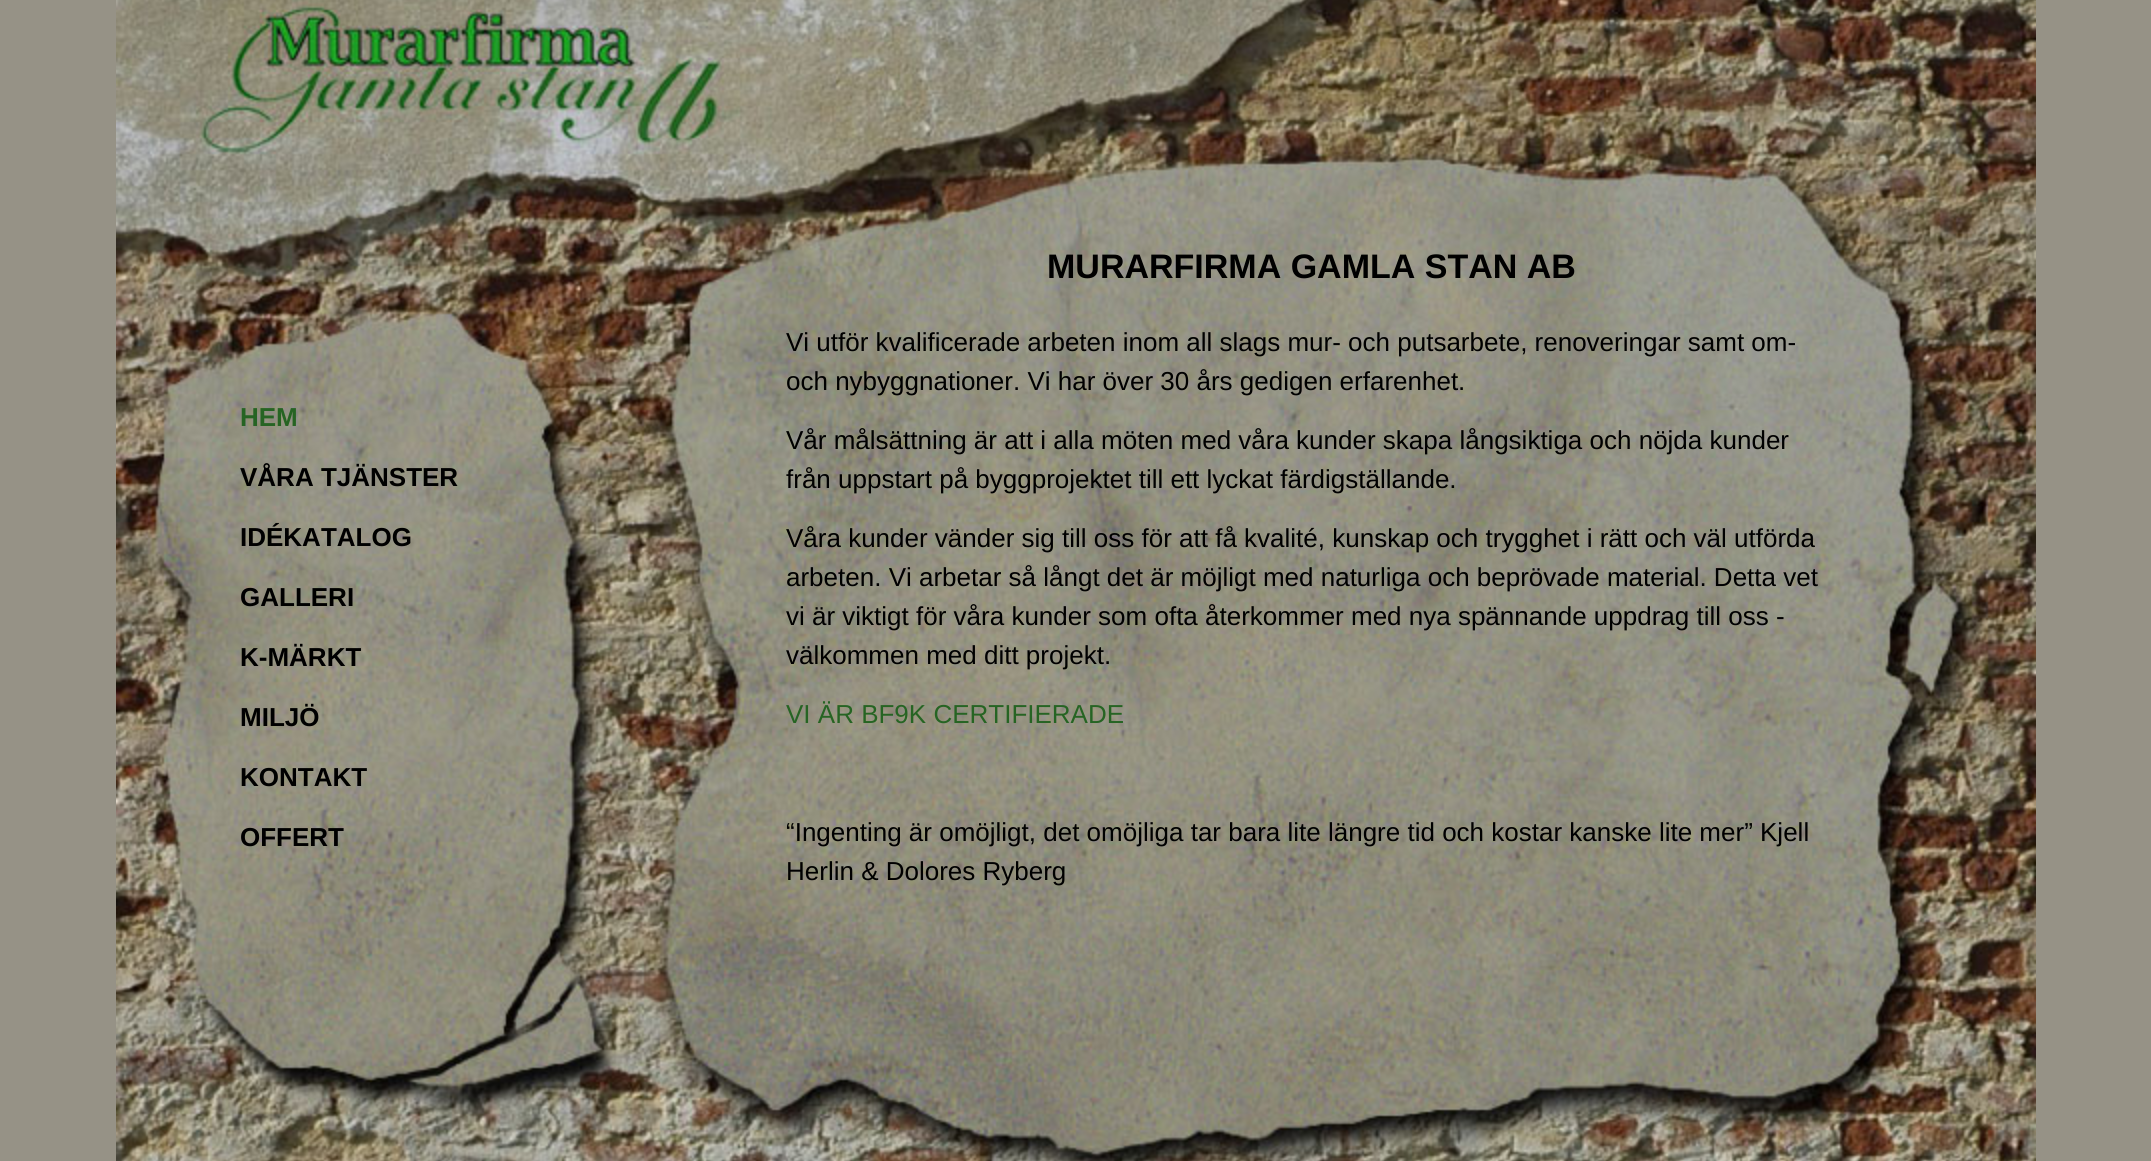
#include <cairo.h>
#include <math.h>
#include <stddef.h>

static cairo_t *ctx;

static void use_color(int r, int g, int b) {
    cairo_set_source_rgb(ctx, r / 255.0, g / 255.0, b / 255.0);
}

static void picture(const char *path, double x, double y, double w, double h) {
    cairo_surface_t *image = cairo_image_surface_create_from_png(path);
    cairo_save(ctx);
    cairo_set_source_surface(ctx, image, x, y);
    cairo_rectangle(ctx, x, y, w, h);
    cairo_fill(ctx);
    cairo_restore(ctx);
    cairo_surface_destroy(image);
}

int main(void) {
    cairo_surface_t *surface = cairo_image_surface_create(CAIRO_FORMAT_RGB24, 2151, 1161);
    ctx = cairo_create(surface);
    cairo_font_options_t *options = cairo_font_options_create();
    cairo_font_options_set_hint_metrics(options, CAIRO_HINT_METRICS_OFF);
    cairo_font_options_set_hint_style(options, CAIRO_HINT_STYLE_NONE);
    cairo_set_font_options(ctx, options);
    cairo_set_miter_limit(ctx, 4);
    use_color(150, 146, 134);
    cairo_paint(ctx);
    picture("img1.png", 116, 0, 1920, 1161);
    cairo_select_font_face(ctx, "Liberation Sans", CAIRO_FONT_SLANT_NORMAL, CAIRO_FONT_WEIGHT_BOLD);
    cairo_set_font_size(ctx, 26);
    use_color(38, 100, 35);
    cairo_move_to(ctx, 240, 426);
    cairo_show_text(ctx, "HEM");
    use_color(0, 0, 0);
    cairo_move_to(ctx, 240, 486);
    cairo_show_text(ctx, "VÅRA TJÄNSTER");
    cairo_move_to(ctx, 240, 546);
    cairo_show_text(ctx, "IDÉKATALOG");
    cairo_move_to(ctx, 240, 606);
    cairo_show_text(ctx, "GALLERI");
    cairo_move_to(ctx, 240, 666);
    cairo_show_text(ctx, "K-MÄRKT");
    cairo_move_to(ctx, 240, 726);
    cairo_show_text(ctx, "MILJÖ");
    cairo_move_to(ctx, 240, 786);
    cairo_show_text(ctx, "KONTAKT");
    cairo_move_to(ctx, 240, 846);
    cairo_show_text(ctx, "OFFERT");
    cairo_set_font_size(ctx, 34);
    cairo_move_to(ctx, 1047, 278);
    cairo_show_text(ctx, "MURARFIRMA GAMLA STAN AB");
    cairo_select_font_face(ctx, "Liberation Sans", CAIRO_FONT_SLANT_NORMAL, CAIRO_FONT_WEIGHT_NORMAL);
    cairo_set_font_size(ctx, 26);
    cairo_move_to(ctx, 786, 351);
    cairo_show_text(ctx, "Vi utför kvalificerade arbeten inom all slags mur- och putsarbete, renoveringar samt om-");
    cairo_move_to(ctx, 786, 390);
    cairo_show_text(ctx, "och nybyggnationer. Vi har över 30 års gedigen erfarenhet.");
    cairo_move_to(ctx, 786, 449);
    cairo_show_text(ctx, "Vår målsättning är att i alla möten med våra kunder skapa långsiktiga och nöjda kunder");
    cairo_move_to(ctx, 786, 488);
    cairo_show_text(ctx, "från uppstart på byggprojektet till ett lyckat färdigställande.");
    cairo_move_to(ctx, 786, 547);
    cairo_show_text(ctx, "Våra kunder vänder sig till oss för att få kvalité, kunskap och trygghet i rätt och väl utförda");
    cairo_move_to(ctx, 786, 586);
    cairo_show_text(ctx, "arbeten. Vi arbetar så långt det är möjligt med naturliga och beprövade material. Detta vet");
    cairo_move_to(ctx, 786, 625);
    cairo_show_text(ctx, "vi är viktigt för våra kunder som ofta återkommer med nya spännande uppdrag till oss -");
    cairo_move_to(ctx, 786, 664);
    cairo_show_text(ctx, "välkommen med ditt projekt.");
    use_color(38, 100, 35);
    cairo_move_to(ctx, 786, 723);
    cairo_show_text(ctx, "VI ÄR BF9K CERTIFIERADE");
    use_color(0, 0, 0);
    cairo_move_to(ctx, 786, 841);
    cairo_show_text(ctx, "“Ingenting är omöjligt, det omöjliga tar bara lite längre tid och kostar kanske lite mer” Kjell");
    cairo_move_to(ctx, 786, 880);
    cairo_show_text(ctx, "Herlin & Dolores Ryberg");
    cairo_surface_write_to_png(surface, "result.png");
    cairo_font_options_destroy(options);
    cairo_destroy(ctx);
    cairo_surface_destroy(surface);
    return 0;
}
